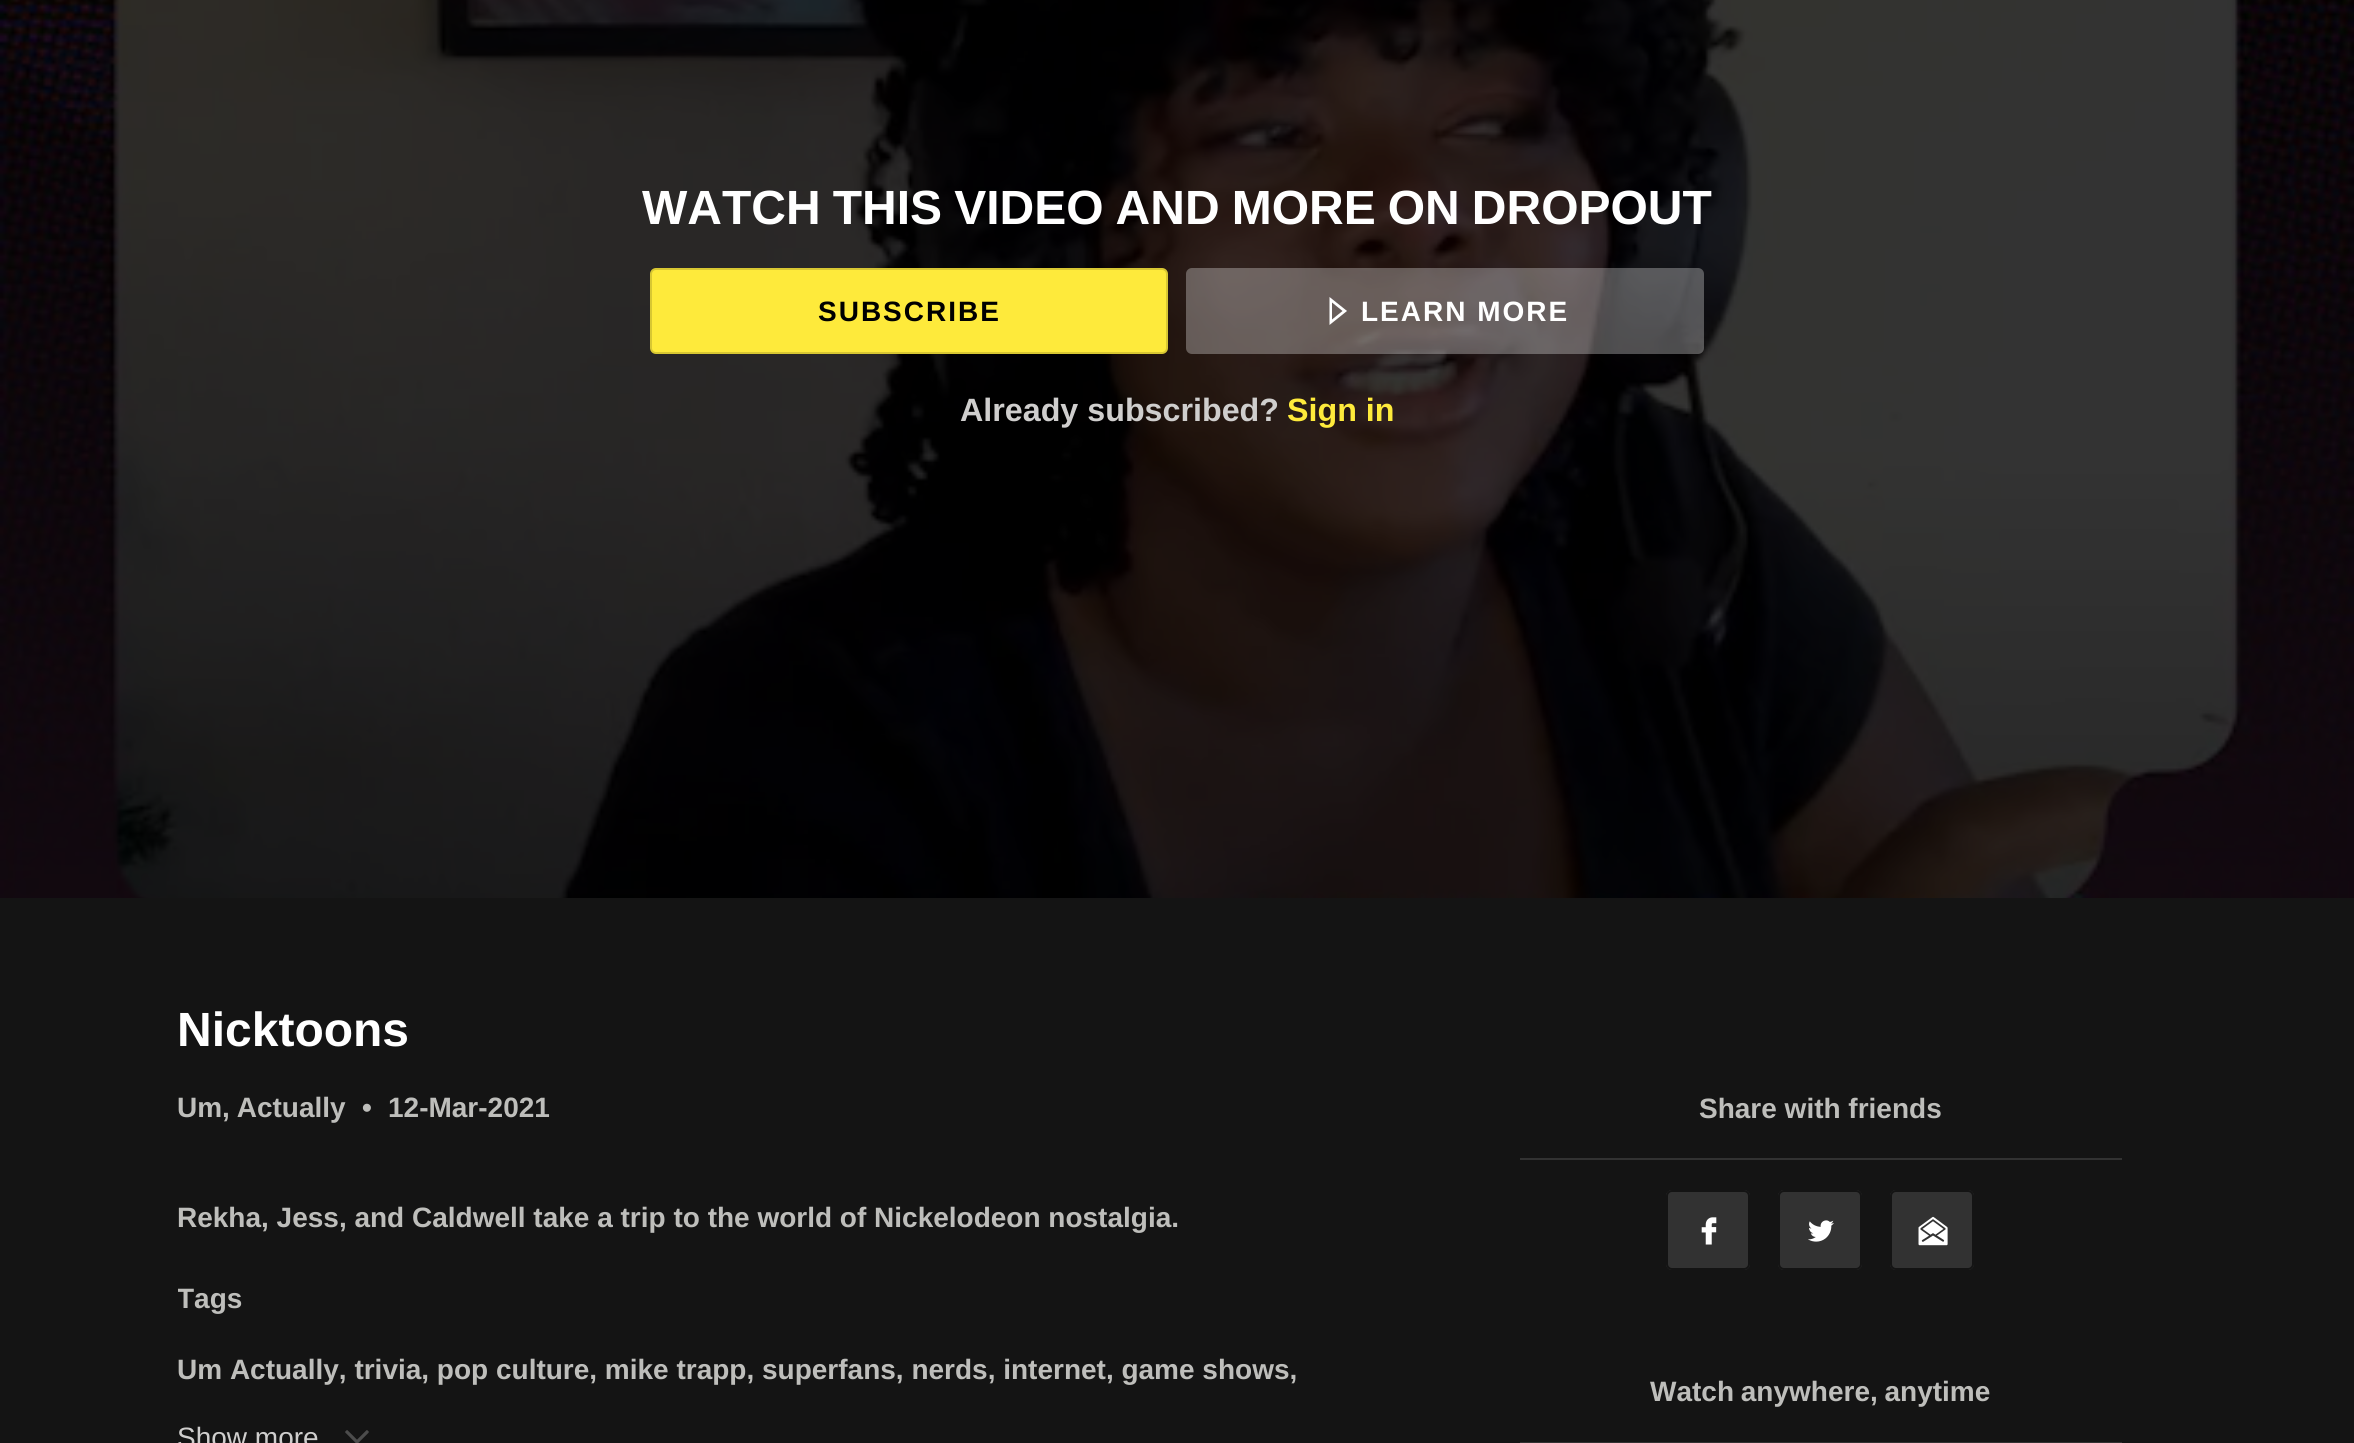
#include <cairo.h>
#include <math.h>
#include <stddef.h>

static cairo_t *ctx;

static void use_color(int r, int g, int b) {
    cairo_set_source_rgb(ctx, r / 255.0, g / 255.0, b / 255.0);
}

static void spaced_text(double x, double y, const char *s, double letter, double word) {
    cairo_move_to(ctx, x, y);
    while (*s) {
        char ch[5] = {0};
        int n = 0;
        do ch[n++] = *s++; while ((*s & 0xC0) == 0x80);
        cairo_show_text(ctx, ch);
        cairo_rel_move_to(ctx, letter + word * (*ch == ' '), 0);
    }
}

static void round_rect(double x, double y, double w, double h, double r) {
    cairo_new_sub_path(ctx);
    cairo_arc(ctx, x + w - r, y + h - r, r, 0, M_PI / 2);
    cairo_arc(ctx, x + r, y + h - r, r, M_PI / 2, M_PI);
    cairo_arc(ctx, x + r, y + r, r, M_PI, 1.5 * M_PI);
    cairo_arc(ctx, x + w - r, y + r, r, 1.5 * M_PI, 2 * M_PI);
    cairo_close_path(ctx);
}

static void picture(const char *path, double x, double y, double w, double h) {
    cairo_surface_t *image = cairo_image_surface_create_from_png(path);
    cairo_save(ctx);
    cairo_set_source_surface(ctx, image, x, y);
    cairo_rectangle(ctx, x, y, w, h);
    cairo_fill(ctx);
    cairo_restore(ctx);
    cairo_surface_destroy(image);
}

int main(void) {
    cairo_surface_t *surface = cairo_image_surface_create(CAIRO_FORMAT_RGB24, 2354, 1443);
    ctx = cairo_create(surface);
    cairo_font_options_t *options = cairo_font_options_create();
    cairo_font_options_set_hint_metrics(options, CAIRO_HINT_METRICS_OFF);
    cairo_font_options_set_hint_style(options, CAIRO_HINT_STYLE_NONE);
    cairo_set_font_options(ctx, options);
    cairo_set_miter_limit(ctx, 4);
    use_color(20, 20, 20);
    cairo_paint(ctx);
    picture("img1.png", 0, 0, 2354, 898);
    cairo_select_font_face(ctx, "Liberation Sans", CAIRO_FONT_SLANT_NORMAL, CAIRO_FONT_WEIGHT_BOLD);
    cairo_set_font_size(ctx, 48);
    use_color(255, 255, 255);
    spaced_text(642, 224, "WATCH THIS VIDEO AND MORE ON DROPOUT", 0, -1.25);
    use_color(254, 234, 59);
    round_rect(651, 269, 516, 84, 5);
    cairo_fill_preserve(ctx);
    use_color(216, 199, 50);
    cairo_stroke(ctx);
    cairo_set_font_size(ctx, 28);
    use_color(0, 0, 0);
    spaced_text(818, 321, "SUBSCRIBE", 2, 0);
    cairo_set_source_rgba(ctx, 1, 1, 1, 0.3);
    round_rect(1186, 268, 518, 86, 6);
    cairo_fill(ctx);
    use_color(255, 255, 255);
    cairo_new_path(ctx);
    cairo_move_to(ctx, 1329.5, 325);
    cairo_line_to(ctx, 1329.5, 297);
    cairo_line_to(ctx, 1347, 311);
    cairo_close_path(ctx);
    cairo_move_to(ctx, 1332, 302.5);
    cairo_line_to(ctx, 1332, 319.5);
    cairo_line_to(ctx, 1342.5, 311);
    cairo_close_path(ctx);
    cairo_fill(ctx);
    spaced_text(1361, 321, "LEARN MORE", 2, 0);
    cairo_set_font_size(ctx, 32.25);
    use_color(207, 206, 205);
    cairo_move_to(ctx, 960, 421);
    cairo_show_text(ctx, "Already subscribed?");
    use_color(254, 234, 59);
    cairo_move_to(ctx, 1287, 421);
    cairo_show_text(ctx, "Sign in");
    cairo_set_font_size(ctx, 48);
    use_color(255, 255, 255);
    cairo_move_to(ctx, 177, 1046);
    cairo_show_text(ctx, "Nicktoons");
    cairo_set_font_size(ctx, 28);
    use_color(190, 190, 187);
    spaced_text(177, 1117, "Um, Actually", 0, -1);
    cairo_move_to(ctx, 362, 1117);
    cairo_show_text(ctx, "•");
    cairo_move_to(ctx, 388, 1117);
    cairo_show_text(ctx, "12-Mar-2021");
    cairo_move_to(ctx, 177, 1227);
    cairo_show_text(ctx, "Rekha, Jess, and Caldwell take a trip to the world of Nickelodeon nostalgia.");
    cairo_save(ctx);
    cairo_rectangle(ctx, 178, 1198, 1226, 210);
    cairo_clip(ctx);
    cairo_move_to(ctx, 177, 1308);
    cairo_show_text(ctx, "Tags");
    cairo_restore(ctx);
    cairo_move_to(ctx, 177, 1379);
    cairo_show_text(ctx, "Um Actually, trivia, pop culture, mike trapp, superfans, nerds, internet, game shows,");
    cairo_select_font_face(ctx, "Liberation Sans", CAIRO_FONT_SLANT_NORMAL, CAIRO_FONT_WEIGHT_NORMAL);
    use_color(207, 206, 205);
    cairo_move_to(ctx, 177, 1447);
    cairo_show_text(ctx, "Show more");
    picture("img2.png", 345, 1430, 24, 13);
    use_color(50, 50, 50);
    cairo_rectangle(ctx, 1520, 1158, 602, 2);
    cairo_fill(ctx);
    cairo_select_font_face(ctx, "Liberation Sans", CAIRO_FONT_SLANT_NORMAL, CAIRO_FONT_WEIGHT_BOLD);
    use_color(190, 190, 187);
    cairo_move_to(ctx, 1699, 1118);
    cairo_show_text(ctx, "Share with friends");
    use_color(50, 50, 50);
    round_rect(1666, 1190, 84, 80, 6);
    cairo_fill(ctx);
    picture("img3.png", 1701, 1217, 16, 28);
    round_rect(1667, 1191, 82, 78, 5);
    use_color(20, 20, 20);
    cairo_stroke(ctx);
    use_color(50, 50, 50);
    round_rect(1778, 1190, 84, 80, 6);
    cairo_fill(ctx);
    picture("img4.png", 1808, 1220, 26, 22);
    round_rect(1779, 1191, 82, 78, 5);
    use_color(20, 20, 20);
    cairo_stroke(ctx);
    use_color(50, 50, 50);
    round_rect(1890, 1190, 84, 80, 6);
    cairo_fill(ctx);
    picture("img5.png", 1918, 1216, 30, 30);
    round_rect(1891, 1191, 82, 78, 5);
    use_color(20, 20, 20);
    cairo_stroke(ctx);
    use_color(50, 50, 50);
    cairo_rectangle(ctx, 1520, 1442, 602, 1);
    cairo_fill(ctx);
    use_color(190, 190, 187);
    spaced_text(1650, 1401, "Watch anywhere, anytime", 0, -1);
    cairo_surface_write_to_png(surface, "result.png");
    cairo_font_options_destroy(options);
    cairo_destroy(ctx);
    cairo_surface_destroy(surface);
    return 0;
}
